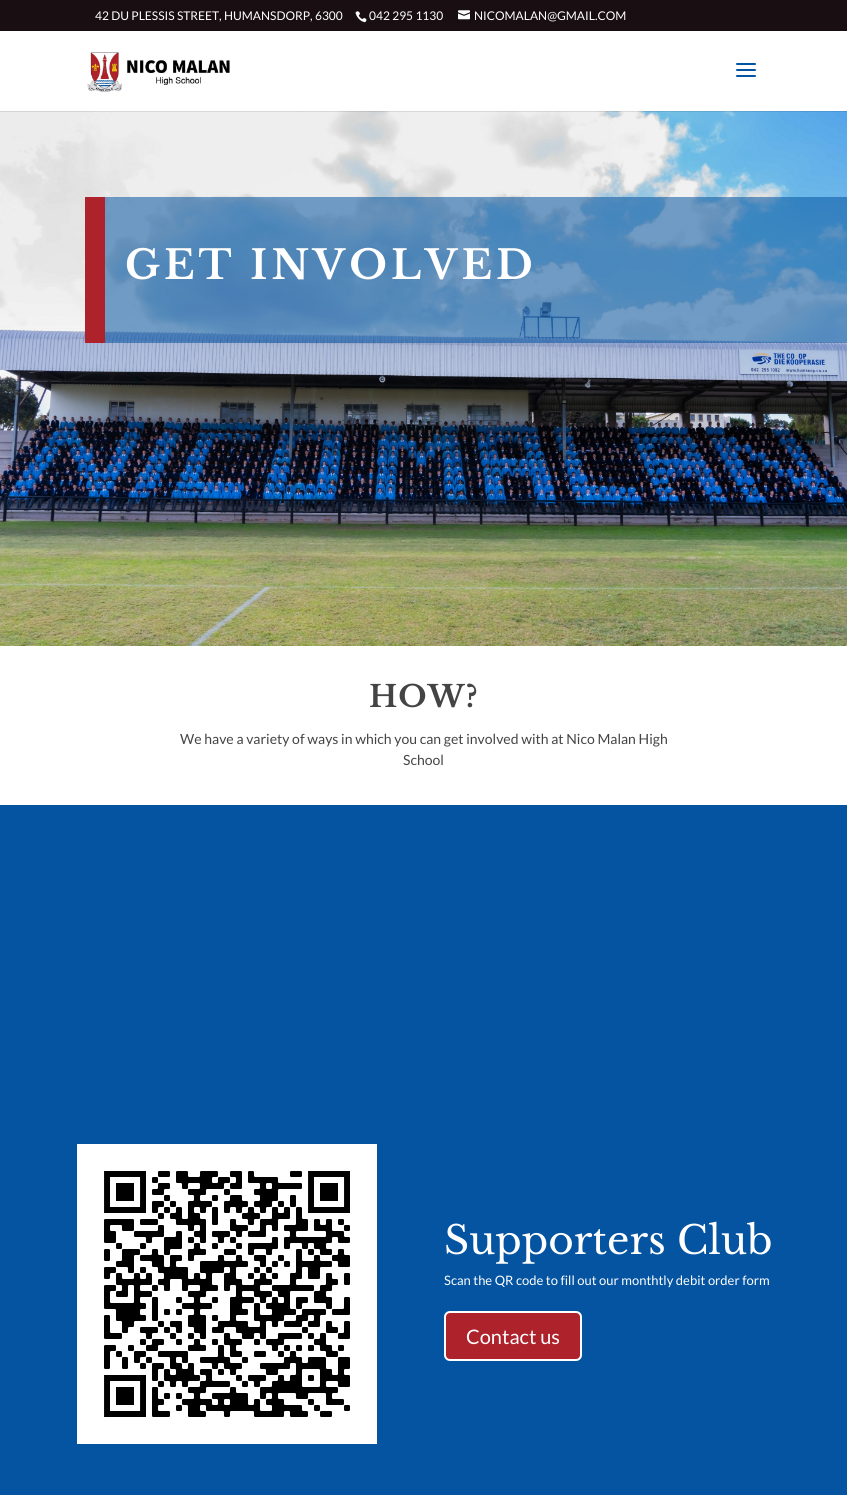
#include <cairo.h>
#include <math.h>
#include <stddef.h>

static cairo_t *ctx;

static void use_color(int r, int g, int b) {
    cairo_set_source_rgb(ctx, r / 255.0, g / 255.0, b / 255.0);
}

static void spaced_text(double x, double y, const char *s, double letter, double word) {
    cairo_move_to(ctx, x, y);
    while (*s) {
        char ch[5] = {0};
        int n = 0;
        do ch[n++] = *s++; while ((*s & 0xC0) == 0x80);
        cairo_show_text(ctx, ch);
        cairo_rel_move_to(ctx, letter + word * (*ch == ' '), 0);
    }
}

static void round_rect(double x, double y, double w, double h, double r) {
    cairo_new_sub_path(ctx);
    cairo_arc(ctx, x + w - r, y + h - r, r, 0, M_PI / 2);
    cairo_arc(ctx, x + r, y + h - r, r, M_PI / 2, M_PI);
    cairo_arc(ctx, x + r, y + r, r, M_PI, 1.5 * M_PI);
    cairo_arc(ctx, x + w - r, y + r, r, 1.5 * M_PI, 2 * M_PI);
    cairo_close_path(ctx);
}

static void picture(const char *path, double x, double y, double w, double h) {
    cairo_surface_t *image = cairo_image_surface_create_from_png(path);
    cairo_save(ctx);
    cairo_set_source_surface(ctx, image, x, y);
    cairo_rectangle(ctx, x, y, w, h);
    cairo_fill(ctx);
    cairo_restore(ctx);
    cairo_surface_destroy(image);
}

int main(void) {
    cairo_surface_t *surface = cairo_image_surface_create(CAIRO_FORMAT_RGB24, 847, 1495);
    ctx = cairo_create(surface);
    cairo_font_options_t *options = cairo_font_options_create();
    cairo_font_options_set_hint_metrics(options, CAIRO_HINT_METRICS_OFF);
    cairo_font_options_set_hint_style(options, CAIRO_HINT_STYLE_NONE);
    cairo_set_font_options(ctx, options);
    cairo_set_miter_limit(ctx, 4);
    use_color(255, 255, 255);
    cairo_paint(ctx);
    use_color(25, 15, 18);
    cairo_rectangle(ctx, 0, 0, 847, 31);
    cairo_fill(ctx);
    cairo_select_font_face(ctx, "Lato", CAIRO_FONT_SLANT_NORMAL, CAIRO_FONT_WEIGHT_NORMAL);
    cairo_set_font_size(ctx, 12);
    use_color(255, 255, 255);
    cairo_move_to(ctx, 95, 20);
    cairo_show_text(ctx, "42 DU PLESSIS STREET, HUMANSDORP, 6300");
    picture("img1.png", 355, 11, 12, 12);
    cairo_move_to(ctx, 369, 20);
    cairo_show_text(ctx, "042 295 1130");
    picture("img2.png", 458, 10, 12, 10);
    cairo_move_to(ctx, 474, 20);
    cairo_show_text(ctx, "NICOMALAN@GMAIL.COM");
    picture("img5.png", 0, 111, 847, 535);
    cairo_set_source_rgba(ctx, 0, 0, 0, 0.1);
    cairo_rectangle(ctx, 0, 111, 847, 1);
    cairo_fill(ctx);
    picture("img3.png", 87, 52, 143, 41);
    picture("img4.png", 736, 63, 20, 14);
    use_color(174, 34, 43);
    cairo_rectangle(ctx, 85, 197, 20, 146);
    cairo_fill(ctx);
    cairo_set_source_rgba(ctx, 0.016, 0.329, 0.631, 0.55);
    cairo_rectangle(ctx, 105, 197, 742, 146);
    cairo_fill(ctx);
    cairo_select_font_face(ctx, "Libre Baskerville", CAIRO_FONT_SLANT_NORMAL, CAIRO_FONT_WEIGHT_BOLD);
    cairo_set_font_size(ctx, 40);
    use_color(255, 255, 255);
    spaced_text(125, 279, "GET INVOLVED", 4, 0);
    cairo_set_font_size(ctx, 30);
    use_color(68, 68, 68);
    spaced_text(369, 707, "HOW?", 1, 0);
    cairo_select_font_face(ctx, "Lato", CAIRO_FONT_SLANT_NORMAL, CAIRO_FONT_WEIGHT_NORMAL);
    cairo_set_font_size(ctx, 14);
    cairo_move_to(ctx, 180, 744);
    cairo_show_text(ctx, "We have a variety of ways in which you can get involved with at Nico Malan High");
    cairo_move_to(ctx, 403, 765);
    cairo_show_text(ctx, "School");
    use_color(4, 84, 161);
    cairo_rectangle(ctx, 0, 805, 847, 690);
    cairo_fill(ctx);
    picture("img6.png", 77, 1144, 300, 300);
    cairo_select_font_face(ctx, "Libre Baskerville", CAIRO_FONT_SLANT_NORMAL, CAIRO_FONT_WEIGHT_NORMAL);
    cairo_set_font_size(ctx, 39);
    use_color(255, 255, 255);
    cairo_move_to(ctx, 444, 1254);
    cairo_show_text(ctx, "Supporters Club");
    cairo_select_font_face(ctx, "Lato", CAIRO_FONT_SLANT_NORMAL, CAIRO_FONT_WEIGHT_NORMAL);
    cairo_set_font_size(ctx, 13);
    cairo_move_to(ctx, 444, 1285);
    cairo_show_text(ctx, "Scan the QR code to fill out our monthtly debit order form");
    use_color(174, 34, 43);
    round_rect(445, 1312, 136, 48, 5);
    cairo_fill_preserve(ctx);
    use_color(255, 255, 255);
    cairo_stroke(ctx);
    cairo_set_font_size(ctx, 20);
    cairo_move_to(ctx, 466, 1344);
    cairo_show_text(ctx, "Contact us");
    cairo_surface_write_to_png(surface, "result.png");
    cairo_font_options_destroy(options);
    cairo_destroy(ctx);
    cairo_surface_destroy(surface);
    return 0;
}
